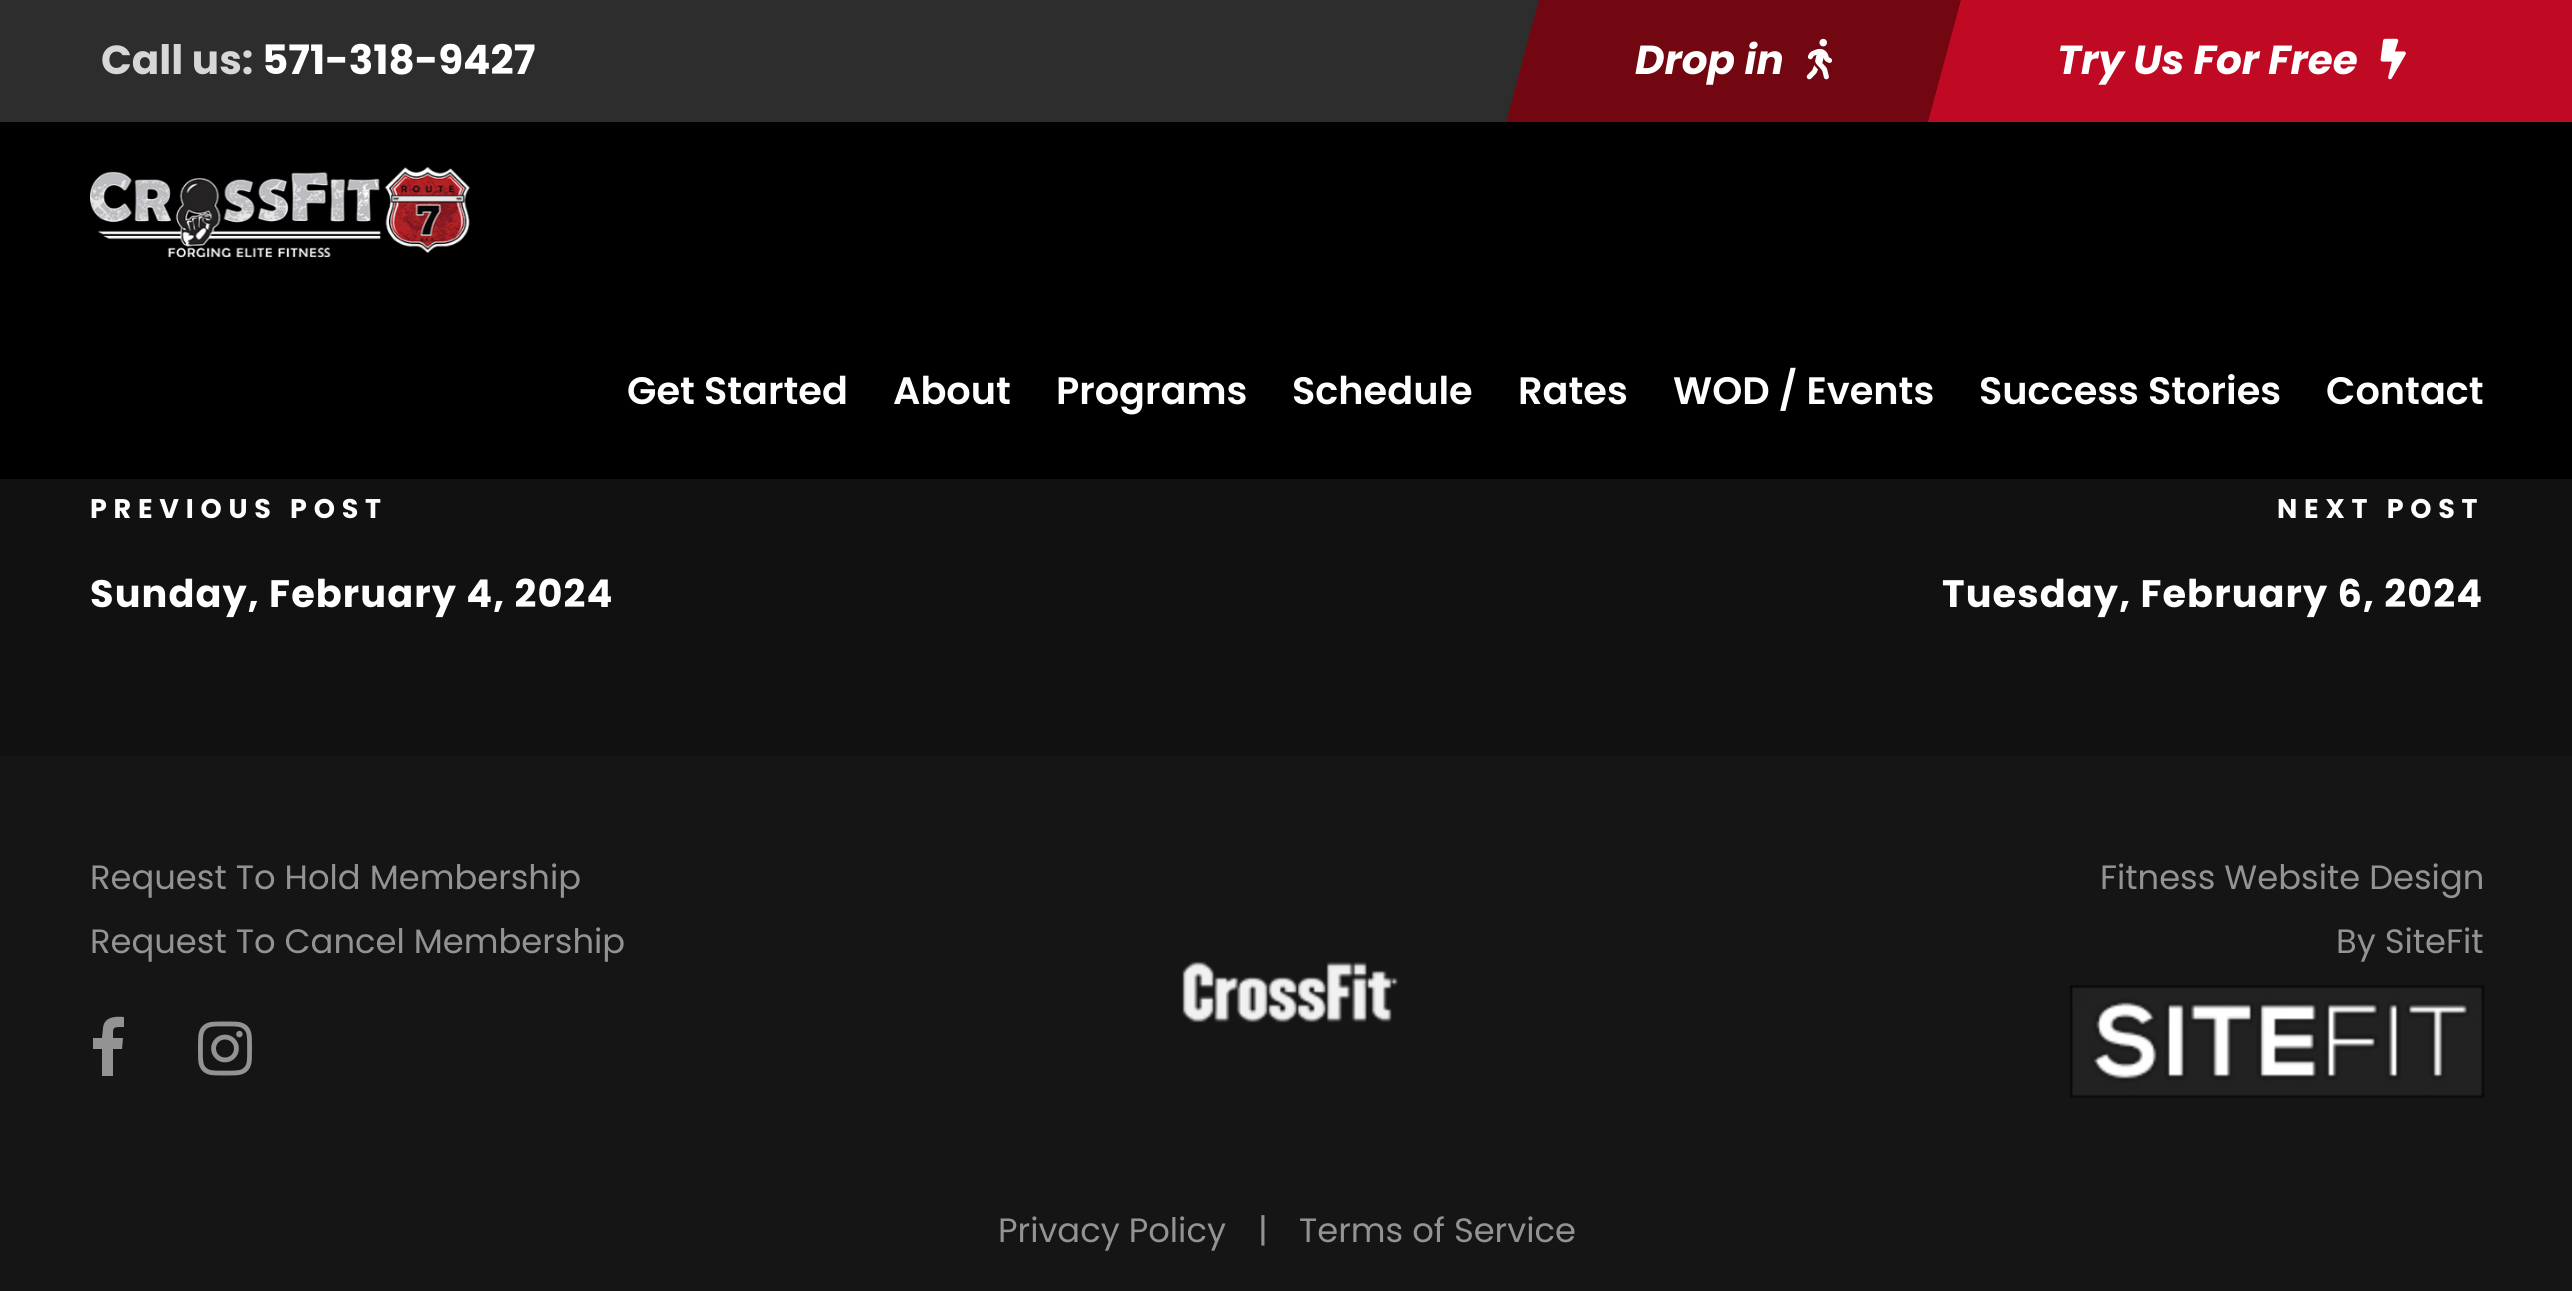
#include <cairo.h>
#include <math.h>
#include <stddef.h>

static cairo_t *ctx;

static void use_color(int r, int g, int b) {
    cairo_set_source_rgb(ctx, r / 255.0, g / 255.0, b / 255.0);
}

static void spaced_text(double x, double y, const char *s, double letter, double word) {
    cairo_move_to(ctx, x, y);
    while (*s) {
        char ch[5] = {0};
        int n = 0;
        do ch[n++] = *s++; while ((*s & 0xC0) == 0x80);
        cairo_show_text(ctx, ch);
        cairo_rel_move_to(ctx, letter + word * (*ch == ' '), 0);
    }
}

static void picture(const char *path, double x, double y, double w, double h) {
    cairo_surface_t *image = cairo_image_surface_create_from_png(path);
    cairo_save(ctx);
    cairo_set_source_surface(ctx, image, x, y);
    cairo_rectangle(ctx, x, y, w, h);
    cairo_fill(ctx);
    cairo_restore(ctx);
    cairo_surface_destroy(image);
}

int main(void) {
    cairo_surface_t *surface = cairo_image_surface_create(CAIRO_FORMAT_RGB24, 2572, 1291);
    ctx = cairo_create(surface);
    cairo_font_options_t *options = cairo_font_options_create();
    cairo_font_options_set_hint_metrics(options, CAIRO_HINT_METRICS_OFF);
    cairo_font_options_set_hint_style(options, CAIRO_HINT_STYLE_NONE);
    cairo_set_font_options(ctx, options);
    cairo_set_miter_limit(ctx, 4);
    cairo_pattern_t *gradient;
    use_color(17, 17, 17);
    cairo_paint(ctx);
    use_color(45, 45, 45);
    cairo_rectangle(ctx, 0, 0, 1539, 122);
    cairo_fill(ctx);
    cairo_select_font_face(ctx, "Poppins", CAIRO_FONT_SLANT_NORMAL, CAIRO_FONT_WEIGHT_BOLD);
    cairo_set_font_size(ctx, 40.5);
    use_color(215, 215, 215);
    cairo_move_to(ctx, 101, 74);
    cairo_show_text(ctx, "Call us:");
    use_color(255, 255, 255);
    cairo_move_to(ctx, 262, 74);
    cairo_show_text(ctx, "571-318-9427");
    use_color(114, 7, 17);
    cairo_new_path(ctx);
    cairo_move_to(ctx, 1539, 0);
    cairo_line_to(ctx, 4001, 0);
    cairo_line_to(ctx, 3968, 122);
    cairo_line_to(ctx, 1506, 122);
    cairo_close_path(ctx);
    cairo_fill(ctx);
    cairo_select_font_face(ctx, "Poppins", CAIRO_FONT_SLANT_ITALIC, CAIRO_FONT_WEIGHT_BOLD);
    use_color(255, 255, 255);
    cairo_move_to(ctx, 1635, 74);
    cairo_show_text(ctx, "Drop in");
    picture("img1.png", 1806, 38, 27, 42);
    gradient = cairo_pattern_create_linear(-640, 61, 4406, 61);
    cairo_pattern_add_color_stop_rgba(gradient, 0, 0.267, 0.267, 0.267, 1);
    cairo_pattern_add_color_stop_rgba(gradient, 0.5, 0.447, 0.027, 0.067, 1);
    cairo_pattern_add_color_stop_rgba(gradient, 0.5, 0.753, 0.039, 0.141, 1);
    cairo_pattern_add_color_stop_rgba(gradient, 1, 0.753, 0.039, 0.141, 1);
    cairo_set_source(ctx, gradient);
    cairo_pattern_destroy(gradient);
    cairo_new_path(ctx);
    cairo_move_to(ctx, 1961, 0);
    cairo_line_to(ctx, 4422, 0);
    cairo_line_to(ctx, 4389, 122);
    cairo_line_to(ctx, 1928, 122);
    cairo_close_path(ctx);
    cairo_fill(ctx);
    use_color(255, 255, 255);
    cairo_move_to(ctx, 2057, 74);
    cairo_show_text(ctx, "Try Us For Free");
    picture("img2.png", 2380, 38, 26, 42);
    cairo_select_font_face(ctx, "Poppins", CAIRO_FONT_SLANT_NORMAL, CAIRO_FONT_WEIGHT_BOLD);
    cairo_set_font_size(ctx, 27);
    spaced_text(90, 518, "PREVIOUS POST", 6.75, 0);
    cairo_set_font_size(ctx, 38.25);
    spaced_text(90, 607, "Sunday, February 4, 2024", 1.1, 0);
    cairo_set_font_size(ctx, 27);
    spaced_text(2277, 518, "NEXT POST", 6.75, 0);
    cairo_set_font_size(ctx, 38.25);
    spaced_text(1942, 607, "Tuesday, February 6, 2024", 1.1, 0);
    use_color(21, 21, 21);
    cairo_rectangle(ctx, 0, 756, 2572, 535);
    cairo_fill(ctx);
    cairo_select_font_face(ctx, "Poppins", CAIRO_FONT_SLANT_NORMAL, CAIRO_FONT_WEIGHT_NORMAL);
    cairo_set_font_size(ctx, 33.75);
    use_color(147, 147, 147);
    cairo_move_to(ctx, 90, 889);
    cairo_show_text(ctx, "Request To Hold Membership");
    cairo_move_to(ctx, 90, 953);
    cairo_show_text(ctx, "Request To Cancel Membership");
    cairo_new_path(ctx);
    cairo_move_to(ctx, 124, 1017);
    cairo_line_to(ctx, 124, 1027);
    cairo_curve_to(ctx, 112, 1027, 113, 1027, 113, 1038);
    cairo_line_to(ctx, 123, 1038);
    cairo_line_to(ctx, 122, 1049);
    cairo_line_to(ctx, 113, 1049);
    cairo_line_to(ctx, 113, 1076);
    cairo_line_to(ctx, 102, 1076);
    cairo_line_to(ctx, 102, 1049);
    cairo_line_to(ctx, 93, 1049);
    cairo_line_to(ctx, 93, 1038);
    cairo_line_to(ctx, 102, 1038);
    cairo_line_to(ctx, 103, 1028);
    cairo_curve_to(ctx, 104, 1017, 115, 1016, 124, 1017);
    cairo_close_path(ctx);
    cairo_fill(ctx);
    picture("img3.png", 198, 1021, 54, 55);
    cairo_move_to(ctx, 2100, 889);
    cairo_show_text(ctx, "Fitness Website Design");
    cairo_move_to(ctx, 2336, 953);
    cairo_show_text(ctx, "By SiteFit");
    picture("img4.png", 2070, 985, 415, 113);
    picture("img5.png", 1182, 961, 216, 62);
    cairo_move_to(ctx, 998, 1242);
    cairo_show_text(ctx, "Privacy Policy");
    cairo_move_to(ctx, 1258, 1242);
    cairo_show_text(ctx, "|");
    cairo_move_to(ctx, 1299, 1242);
    cairo_show_text(ctx, "Terms of Service");
    use_color(0, 0, 0);
    cairo_rectangle(ctx, 0, 122, 2572, 357);
    cairo_fill(ctx);
    picture("img6.png", 90, 166, 380, 92);
    cairo_select_font_face(ctx, "Poppins SemiBold", CAIRO_FONT_SLANT_NORMAL, CAIRO_FONT_WEIGHT_NORMAL);
    cairo_set_font_size(ctx, 38.25);
    use_color(255, 255, 255);
    cairo_move_to(ctx, 627, 404);
    cairo_show_text(ctx, "Get Started");
    cairo_move_to(ctx, 893, 404);
    cairo_show_text(ctx, "About");
    cairo_move_to(ctx, 1056, 404);
    cairo_show_text(ctx, "Programs");
    cairo_move_to(ctx, 1292, 404);
    cairo_show_text(ctx, "Schedule");
    cairo_move_to(ctx, 1518, 404);
    cairo_show_text(ctx, "Rates");
    cairo_move_to(ctx, 1673, 404);
    cairo_show_text(ctx, "WOD / Events");
    cairo_move_to(ctx, 1979, 404);
    cairo_show_text(ctx, "Success Stories");
    cairo_move_to(ctx, 2326, 404);
    cairo_show_text(ctx, "Contact");
    cairo_surface_write_to_png(surface, "result.png");
    cairo_font_options_destroy(options);
    cairo_destroy(ctx);
    cairo_surface_destroy(surface);
    return 0;
}
